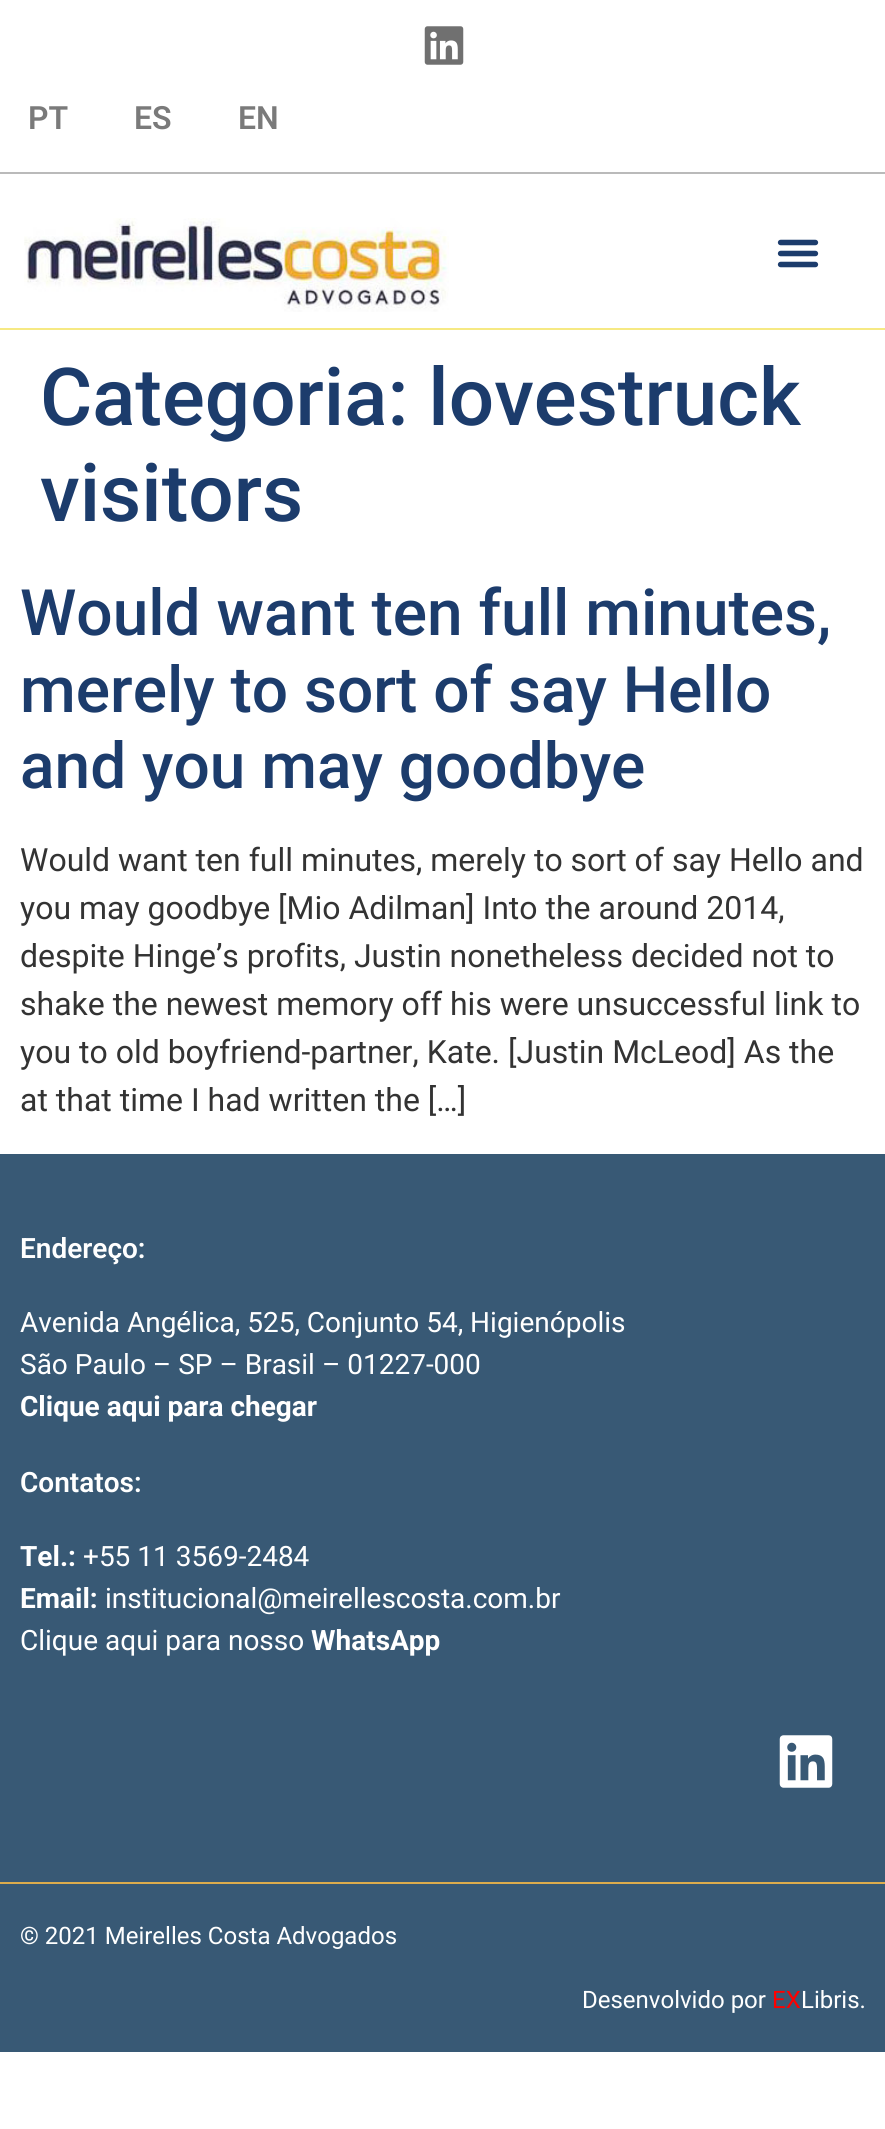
#include <cairo.h>
#include <math.h>
#include <stddef.h>

static cairo_t *ctx;

static void use_color(int r, int g, int b) {
    cairo_set_source_rgb(ctx, r / 255.0, g / 255.0, b / 255.0);
}

static void picture(const char *path, double x, double y, double w, double h) {
    cairo_surface_t *image = cairo_image_surface_create_from_png(path);
    cairo_save(ctx);
    cairo_set_source_surface(ctx, image, x, y);
    cairo_rectangle(ctx, x, y, w, h);
    cairo_fill(ctx);
    cairo_restore(ctx);
    cairo_surface_destroy(image);
}

int main(void) {
    cairo_surface_t *surface = cairo_image_surface_create(CAIRO_FORMAT_RGB24, 885, 2129);
    ctx = cairo_create(surface);
    cairo_font_options_t *options = cairo_font_options_create();
    cairo_font_options_set_hint_metrics(options, CAIRO_HINT_METRICS_OFF);
    cairo_font_options_set_hint_style(options, CAIRO_HINT_STYLE_NONE);
    cairo_set_font_options(ctx, options);
    cairo_set_miter_limit(ctx, 4);
    use_color(255, 255, 255);
    cairo_paint(ctx);
    picture("img1.png", 424, 26, 40, 39);
    cairo_select_font_face(ctx, "Roboto SemiBold", CAIRO_FONT_SLANT_NORMAL, CAIRO_FONT_WEIGHT_NORMAL);
    cairo_set_font_size(ctx, 32);
    use_color(122, 122, 122);
    cairo_move_to(ctx, 28, 129);
    cairo_show_text(ctx, "PT");
    cairo_move_to(ctx, 134, 129);
    cairo_show_text(ctx, "ES");
    cairo_move_to(ctx, 238, 129);
    cairo_show_text(ctx, "EN");
    use_color(186, 186, 186);
    cairo_rectangle(ctx, 0, 172, 885, 2);
    cairo_fill(ctx);
    picture("img2.png", 24, 218, 425, 94);
    picture("img3.png", 777, 239, 42, 29);
    use_color(246, 233, 131);
    cairo_rectangle(ctx, 0, 328, 885, 2);
    cairo_fill(ctx);
    cairo_select_font_face(ctx, "Roboto Medium", CAIRO_FONT_SLANT_NORMAL, CAIRO_FONT_WEIGHT_NORMAL);
    cairo_set_font_size(ctx, 80);
    use_color(28, 60, 108);
    cairo_move_to(ctx, 40, 425);
    cairo_show_text(ctx, "Categoria: lovestruck");
    cairo_move_to(ctx, 40, 521);
    cairo_show_text(ctx, "visitors");
    cairo_set_font_size(ctx, 64);
    cairo_move_to(ctx, 20, 635);
    cairo_show_text(ctx, "Would want ten full minutes,");
    cairo_move_to(ctx, 20, 712);
    cairo_show_text(ctx, "merely to sort of say Hello");
    cairo_move_to(ctx, 20, 788);
    cairo_show_text(ctx, "and you may goodbye");
    cairo_select_font_face(ctx, "Roboto", CAIRO_FONT_SLANT_NORMAL, CAIRO_FONT_WEIGHT_NORMAL);
    cairo_set_font_size(ctx, 32);
    use_color(51, 51, 51);
    cairo_move_to(ctx, 20, 871);
    cairo_show_text(ctx, "Would want ten full minutes, merely to sort of say Hello and");
    cairo_move_to(ctx, 20, 919);
    cairo_show_text(ctx, "you may goodbye [Mio Adilman] Into the around 2014,");
    cairo_move_to(ctx, 20, 967);
    cairo_show_text(ctx, "despite Hinge’s profits, Justin nonetheless decided not to");
    cairo_move_to(ctx, 20, 1015);
    cairo_show_text(ctx, "shake the newest memory off his were unsuccessful link to");
    cairo_move_to(ctx, 20, 1063);
    cairo_show_text(ctx, "you to old boyfriend-partner, Kate. [Justin McLeod] As the");
    cairo_move_to(ctx, 20, 1111);
    cairo_show_text(ctx, "at that time I had written the […]");
    use_color(56, 89, 117);
    cairo_rectangle(ctx, 0, 1154, 885, 728);
    cairo_fill(ctx);
    cairo_select_font_face(ctx, "Roboto SemiBold", CAIRO_FONT_SLANT_NORMAL, CAIRO_FONT_WEIGHT_NORMAL);
    cairo_set_font_size(ctx, 28);
    use_color(255, 255, 255);
    cairo_move_to(ctx, 20, 1258);
    cairo_show_text(ctx, "Endereço:");
    cairo_select_font_face(ctx, "Roboto", CAIRO_FONT_SLANT_NORMAL, CAIRO_FONT_WEIGHT_NORMAL);
    cairo_move_to(ctx, 20, 1332);
    cairo_show_text(ctx, "Avenida Angélica, 525, Conjunto 54, Higienópolis");
    cairo_move_to(ctx, 20, 1374);
    cairo_show_text(ctx, "São Paulo – SP – Brasil – 01227-000");
    cairo_select_font_face(ctx, "Roboto", CAIRO_FONT_SLANT_NORMAL, CAIRO_FONT_WEIGHT_BOLD);
    cairo_move_to(ctx, 20, 1416);
    cairo_show_text(ctx, "Clique aqui para chegar");
    cairo_select_font_face(ctx, "Roboto SemiBold", CAIRO_FONT_SLANT_NORMAL, CAIRO_FONT_WEIGHT_NORMAL);
    cairo_move_to(ctx, 20, 1492);
    cairo_show_text(ctx, "Contatos:");
    cairo_select_font_face(ctx, "Roboto", CAIRO_FONT_SLANT_NORMAL, CAIRO_FONT_WEIGHT_BOLD);
    cairo_move_to(ctx, 20, 1566);
    cairo_show_text(ctx, "Tel.:");
    cairo_select_font_face(ctx, "Roboto", CAIRO_FONT_SLANT_NORMAL, CAIRO_FONT_WEIGHT_NORMAL);
    cairo_move_to(ctx, 83, 1566);
    cairo_show_text(ctx, "+55 11 3569-2484");
    cairo_select_font_face(ctx, "Roboto", CAIRO_FONT_SLANT_NORMAL, CAIRO_FONT_WEIGHT_BOLD);
    cairo_move_to(ctx, 20, 1608);
    cairo_show_text(ctx, "Email:");
    cairo_select_font_face(ctx, "Roboto", CAIRO_FONT_SLANT_NORMAL, CAIRO_FONT_WEIGHT_NORMAL);
    cairo_move_to(ctx, 105, 1608);
    cairo_show_text(ctx, "institucional@meirellescosta.com.br");
    cairo_move_to(ctx, 20, 1650);
    cairo_show_text(ctx, "Clique aqui para nosso");
    cairo_select_font_face(ctx, "Roboto", CAIRO_FONT_SLANT_NORMAL, CAIRO_FONT_WEIGHT_BOLD);
    cairo_move_to(ctx, 311, 1650);
    cairo_show_text(ctx, "WhatsApp");
    picture("img4.png", 779, 1735, 54, 53);
    use_color(56, 89, 117);
    cairo_rectangle(ctx, 0, 1884, 885, 168);
    cairo_fill(ctx);
    use_color(220, 172, 76);
    cairo_rectangle(ctx, 0, 1882, 885, 2);
    cairo_fill(ctx);
    cairo_select_font_face(ctx, "Roboto", CAIRO_FONT_SLANT_NORMAL, CAIRO_FONT_WEIGHT_NORMAL);
    cairo_set_font_size(ctx, 24);
    use_color(255, 255, 255);
    cairo_move_to(ctx, 20, 1944);
    cairo_show_text(ctx, "© 2021 Meirelles Costa Advogados");
    cairo_move_to(ctx, 582, 2008);
    cairo_show_text(ctx, "Desenvolvido por");
    use_color(255, 0, 0);
    cairo_move_to(ctx, 772, 2008);
    cairo_show_text(ctx, "EX");
    use_color(255, 255, 255);
    cairo_move_to(ctx, 801, 2008);
    cairo_show_text(ctx, "Libris.");
    cairo_surface_write_to_png(surface, "result.png");
    cairo_font_options_destroy(options);
    cairo_destroy(ctx);
    cairo_surface_destroy(surface);
    return 0;
}
